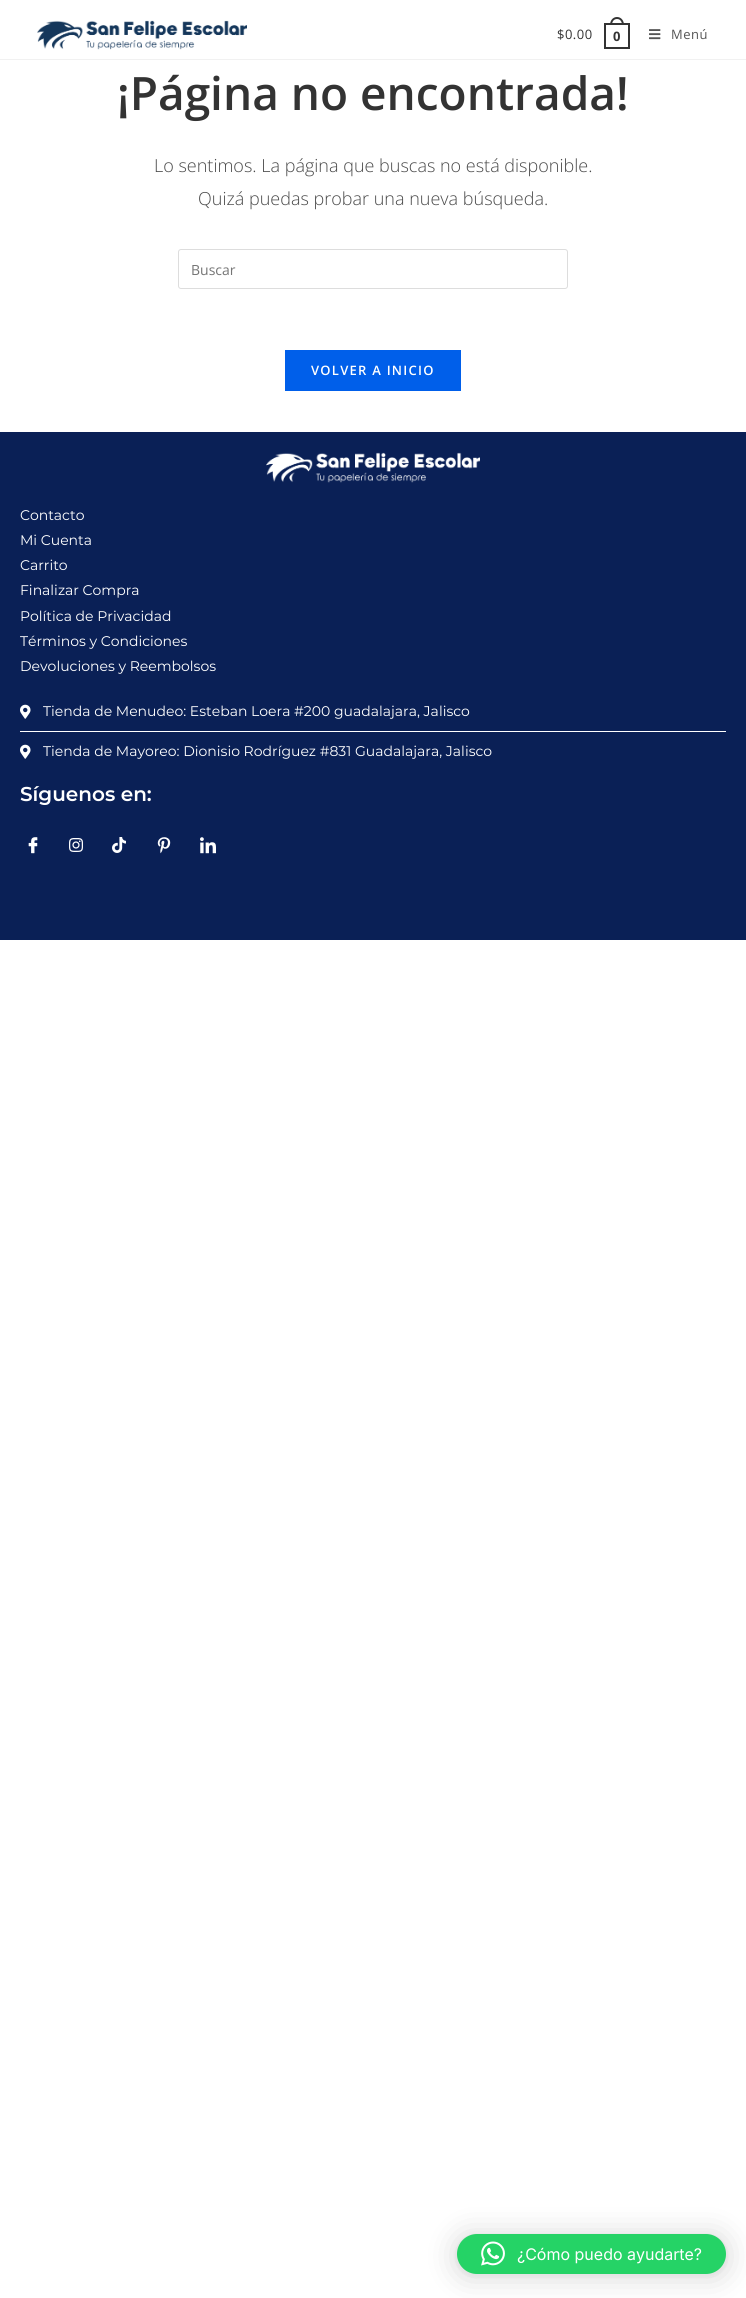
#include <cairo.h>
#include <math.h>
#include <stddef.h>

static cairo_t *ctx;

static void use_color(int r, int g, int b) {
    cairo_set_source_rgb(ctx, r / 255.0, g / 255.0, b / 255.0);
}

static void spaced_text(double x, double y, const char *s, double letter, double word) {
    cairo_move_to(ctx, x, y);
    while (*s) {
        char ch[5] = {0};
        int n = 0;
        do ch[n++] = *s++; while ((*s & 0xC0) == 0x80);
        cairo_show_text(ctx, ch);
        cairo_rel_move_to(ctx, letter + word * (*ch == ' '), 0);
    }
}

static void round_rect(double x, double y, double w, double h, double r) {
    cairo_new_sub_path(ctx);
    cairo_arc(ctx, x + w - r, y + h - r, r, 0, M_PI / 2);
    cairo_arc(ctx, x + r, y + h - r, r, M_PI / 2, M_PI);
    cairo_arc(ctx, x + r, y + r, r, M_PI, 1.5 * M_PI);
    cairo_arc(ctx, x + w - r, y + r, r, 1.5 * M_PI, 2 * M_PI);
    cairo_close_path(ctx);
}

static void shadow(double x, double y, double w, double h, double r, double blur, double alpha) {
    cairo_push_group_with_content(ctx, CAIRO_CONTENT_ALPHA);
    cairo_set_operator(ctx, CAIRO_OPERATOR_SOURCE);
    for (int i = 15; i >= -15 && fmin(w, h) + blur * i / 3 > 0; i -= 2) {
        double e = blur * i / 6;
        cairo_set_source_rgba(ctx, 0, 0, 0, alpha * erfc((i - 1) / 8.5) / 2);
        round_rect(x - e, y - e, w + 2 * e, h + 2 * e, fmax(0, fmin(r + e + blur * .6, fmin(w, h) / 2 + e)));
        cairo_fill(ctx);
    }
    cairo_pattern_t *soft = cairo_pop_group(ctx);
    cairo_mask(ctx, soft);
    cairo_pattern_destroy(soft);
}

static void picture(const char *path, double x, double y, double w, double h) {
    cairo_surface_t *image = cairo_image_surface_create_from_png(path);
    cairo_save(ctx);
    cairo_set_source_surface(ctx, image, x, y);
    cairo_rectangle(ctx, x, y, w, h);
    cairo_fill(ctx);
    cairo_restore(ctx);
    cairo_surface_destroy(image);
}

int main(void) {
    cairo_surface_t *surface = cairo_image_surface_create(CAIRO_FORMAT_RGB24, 746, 2298);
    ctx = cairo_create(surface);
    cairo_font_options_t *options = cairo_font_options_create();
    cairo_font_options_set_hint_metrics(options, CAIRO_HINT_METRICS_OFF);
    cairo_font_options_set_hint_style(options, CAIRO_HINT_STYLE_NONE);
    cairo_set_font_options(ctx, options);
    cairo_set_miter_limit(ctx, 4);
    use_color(255, 255, 255);
    cairo_paint(ctx);
    use_color(241, 241, 241);
    cairo_rectangle(ctx, 0, 59, 746, 1);
    cairo_fill(ctx);
    picture("img1.png", 37, 20, 210, 30);
    cairo_select_font_face(ctx, "Open Sans", CAIRO_FONT_SLANT_NORMAL, CAIRO_FONT_WEIGHT_NORMAL);
    cairo_set_font_size(ctx, 13);
    use_color(51, 51, 51);
    spaced_text(557, 39, "$0.00", 0.5, 0);
    cairo_rectangle(ctx, 605, 24, 24, 24);
    cairo_stroke(ctx);
    cairo_set_fill_rule(ctx, CAIRO_FILL_RULE_EVEN_ODD);
    cairo_new_path(ctx);
    cairo_move_to(ctx, 617, 17);
    cairo_curve_to(ctx, 621.5, 17, 624, 21, 624, 25);
    cairo_line_to(ctx, 610, 25);
    cairo_curve_to(ctx, 610, 21, 612.5, 17, 617, 17);
    cairo_close_path(ctx);
    cairo_move_to(ctx, 617, 19);
    cairo_curve_to(ctx, 620.5, 19, 622, 22, 622, 25);
    cairo_line_to(ctx, 612, 25);
    cairo_curve_to(ctx, 612, 22, 613.5, 19, 617, 19);
    cairo_close_path(ctx);
    cairo_fill(ctx);
    cairo_select_font_face(ctx, "Open Sans", CAIRO_FONT_SLANT_NORMAL, CAIRO_FONT_WEIGHT_BOLD);
    spaced_text(613, 41, "0", 0.5, 0);
    picture("img2.png", 649, 29, 12, 11);
    cairo_select_font_face(ctx, "Open Sans", CAIRO_FONT_SLANT_NORMAL, CAIRO_FONT_WEIGHT_NORMAL);
    use_color(85, 85, 85);
    spaced_text(671, 39, "Menú", 0.5, 0);
    cairo_select_font_face(ctx, "Open Sans SemiBold", CAIRO_FONT_SLANT_NORMAL, CAIRO_FONT_WEIGHT_NORMAL);
    cairo_set_font_size(ctx, 46);
    use_color(51, 51, 51);
    cairo_move_to(ctx, 117, 110);
    cairo_show_text(ctx, "¡Página no encontrada!");
    cairo_select_font_face(ctx, "Open Sans Light", CAIRO_FONT_SLANT_NORMAL, CAIRO_FONT_WEIGHT_NORMAL);
    cairo_set_font_size(ctx, 18);
    use_color(74, 74, 74);
    cairo_move_to(ctx, 154, 172);
    cairo_show_text(ctx, "Lo sentimos. La página que buscas no está disponible.");
    cairo_move_to(ctx, 198, 205);
    cairo_show_text(ctx, "Quizá puedas probar una nueva búsqueda.");
    round_rect(178.5, 249.5, 389, 39, 2.5);
    use_color(221, 221, 221);
    cairo_set_line_width(ctx, 1);
    cairo_stroke(ctx);
    cairo_select_font_face(ctx, "Open Sans", CAIRO_FONT_SLANT_NORMAL, CAIRO_FONT_WEIGHT_NORMAL);
    cairo_set_font_size(ctx, 14);
    use_color(117, 117, 117);
    cairo_move_to(ctx, 191, 275);
    cairo_show_text(ctx, "Buscar");
    use_color(0, 95, 234);
    cairo_rectangle(ctx, 285, 350, 176, 41);
    cairo_fill(ctx);
    cairo_select_font_face(ctx, "Open Sans SemiBold", CAIRO_FONT_SLANT_NORMAL, CAIRO_FONT_WEIGHT_NORMAL);
    cairo_set_font_size(ctx, 13);
    use_color(255, 255, 255);
    spaced_text(311, 375, "VOLVER A INICIO", 1.25, 0);
    use_color(10, 32, 86);
    cairo_rectangle(ctx, 0, 432, 746, 508);
    cairo_fill(ctx);
    picture("img3.png", 266, 452, 214, 31);
    cairo_select_font_face(ctx, "Montserrat", CAIRO_FONT_SLANT_NORMAL, CAIRO_FONT_WEIGHT_NORMAL);
    cairo_set_font_size(ctx, 14);
    use_color(255, 255, 255);
    cairo_move_to(ctx, 20, 520);
    cairo_show_text(ctx, "Contacto");
    cairo_move_to(ctx, 20, 545);
    cairo_show_text(ctx, "Mi Cuenta");
    cairo_move_to(ctx, 20, 570);
    cairo_show_text(ctx, "Carrito");
    cairo_move_to(ctx, 20, 595);
    cairo_show_text(ctx, "Finalizar Compra");
    cairo_move_to(ctx, 20, 621);
    cairo_show_text(ctx, "Política de Privacidad");
    cairo_move_to(ctx, 20, 646);
    cairo_show_text(ctx, "Términos y Condiciones");
    cairo_move_to(ctx, 20, 671);
    cairo_show_text(ctx, "Devoluciones y Reembolsos");
    picture("img4.png", 20, 704, 11, 15);
    cairo_move_to(ctx, 43, 716);
    cairo_show_text(ctx, "Tienda de Menudeo: Esteban Loera #200 guadalajara, Jalisco");
    cairo_rectangle(ctx, 20, 731, 706, 1);
    cairo_fill(ctx);
    picture("img4.png", 20, 744, 11, 15);
    cairo_move_to(ctx, 43, 756);
    cairo_show_text(ctx, "Tienda de Mayoreo: Dionisio Rodríguez #831 Guadalajara, Jalisco");
    cairo_select_font_face(ctx, "Montserrat SemiBold", CAIRO_FONT_SLANT_NORMAL, CAIRO_FONT_WEIGHT_NORMAL);
    cairo_set_font_size(ctx, 20);
    cairo_move_to(ctx, 20, 801);
    cairo_show_text(ctx, "Síguenos en:");
    picture("img5.png", 28, 837, 10, 17);
    picture("img6.png", 69, 838, 14, 14);
    picture("img7.png", 112, 837, 14, 16);
    picture("img8.png", 157, 837, 14, 17);
    picture("img9.png", 200, 837, 16, 17);
    use_color(0, 0, 0);
    shadow(457, 2236, 269, 40, 20, 16, 0.16);
    shadow(457, 2235, 269, 40, 20, 3, 0.06);
    use_color(37, 211, 102);
    round_rect(457, 2234, 269, 40, 20);
    cairo_fill(ctx);
    picture("img10.png", 481, 2241, 24, 25);
    cairo_select_font_face(ctx, "Inter", CAIRO_FONT_SLANT_NORMAL, CAIRO_FONT_WEIGHT_NORMAL);
    cairo_set_font_size(ctx, 16);
    use_color(255, 255, 255);
    cairo_move_to(ctx, 517, 2260);
    cairo_show_text(ctx, "¿Cómo puedo ayudarte?");
    cairo_surface_write_to_png(surface, "result.png");
    cairo_font_options_destroy(options);
    cairo_destroy(ctx);
    cairo_surface_destroy(surface);
    return 0;
}
